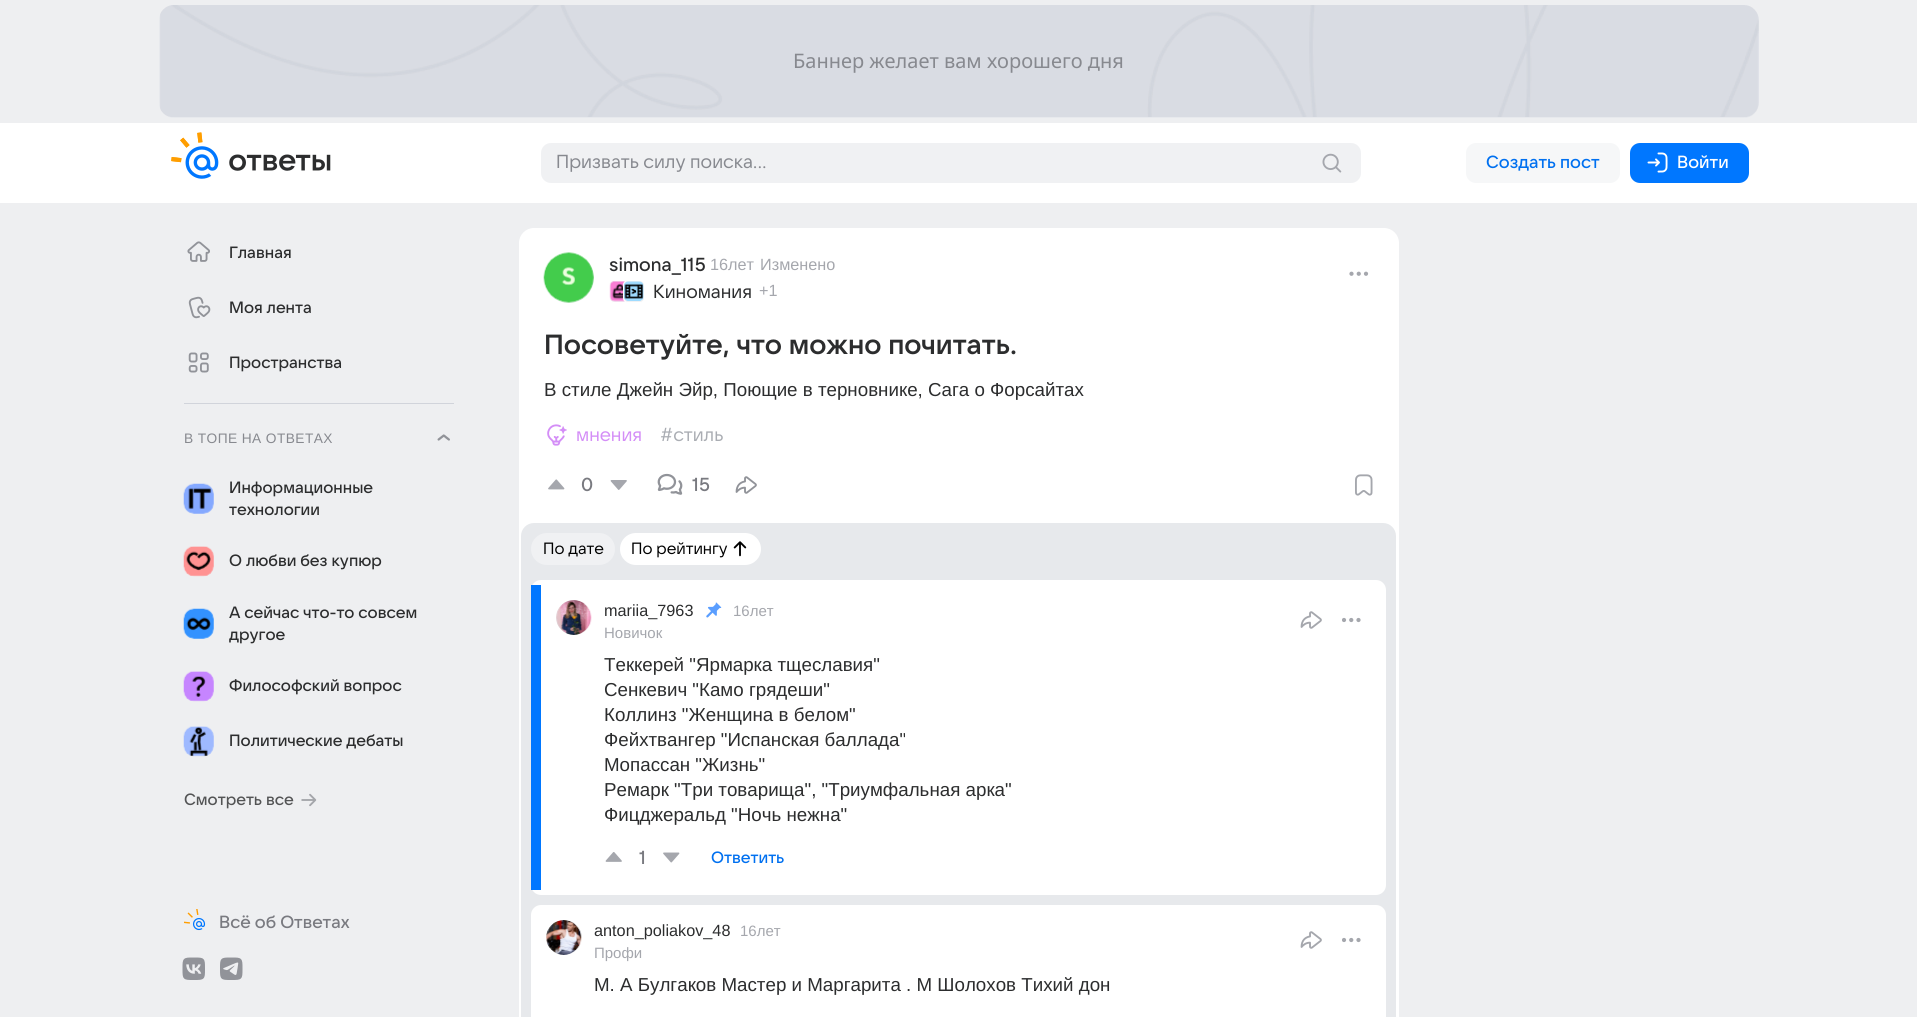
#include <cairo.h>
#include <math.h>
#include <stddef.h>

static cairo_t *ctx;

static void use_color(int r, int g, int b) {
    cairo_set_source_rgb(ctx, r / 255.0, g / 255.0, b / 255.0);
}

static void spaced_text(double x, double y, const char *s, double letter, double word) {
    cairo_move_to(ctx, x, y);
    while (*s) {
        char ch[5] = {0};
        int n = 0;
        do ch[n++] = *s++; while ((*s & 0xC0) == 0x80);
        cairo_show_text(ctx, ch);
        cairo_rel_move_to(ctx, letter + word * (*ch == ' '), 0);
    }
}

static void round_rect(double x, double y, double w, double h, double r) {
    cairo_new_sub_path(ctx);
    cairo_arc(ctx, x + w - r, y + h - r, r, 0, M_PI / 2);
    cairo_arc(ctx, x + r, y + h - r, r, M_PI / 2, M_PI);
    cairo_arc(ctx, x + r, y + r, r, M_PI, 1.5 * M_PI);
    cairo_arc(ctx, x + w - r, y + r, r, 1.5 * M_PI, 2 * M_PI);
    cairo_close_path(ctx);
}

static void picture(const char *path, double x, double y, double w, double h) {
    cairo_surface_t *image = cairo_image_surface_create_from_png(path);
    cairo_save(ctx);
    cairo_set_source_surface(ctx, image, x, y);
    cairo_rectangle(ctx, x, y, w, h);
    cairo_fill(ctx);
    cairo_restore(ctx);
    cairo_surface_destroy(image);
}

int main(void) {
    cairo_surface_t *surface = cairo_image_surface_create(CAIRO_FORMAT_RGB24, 1917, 1017);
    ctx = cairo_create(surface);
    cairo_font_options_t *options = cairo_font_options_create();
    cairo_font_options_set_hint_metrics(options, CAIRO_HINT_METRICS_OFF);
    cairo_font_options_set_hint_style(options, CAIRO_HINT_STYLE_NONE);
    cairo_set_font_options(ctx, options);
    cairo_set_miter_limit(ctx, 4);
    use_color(238, 239, 241);
    cairo_paint(ctx);
    use_color(231, 233, 237);
    round_rect(159, 5, 1600, 113, 15);
    cairo_fill(ctx);
    picture("img1.png", 160, 5, 1599, 112);
    cairo_select_font_face(ctx, "Noto Sans", CAIRO_FONT_SLANT_NORMAL, CAIRO_FONT_WEIGHT_NORMAL);
    cairo_set_font_size(ctx, 20);
    use_color(135, 137, 143);
    cairo_move_to(ctx, 793, 68);
    cairo_show_text(ctx, "Баннер желает вам хорошего дня");
    use_color(255, 255, 255);
    cairo_rectangle(ctx, 0, 123, 1917, 80);
    cairo_fill(ctx);
    picture("img2.png", 171, 132, 160, 47);
    use_color(240, 241, 243);
    round_rect(541, 143, 820, 40, 10);
    cairo_fill(ctx);
    cairo_select_font_face(ctx, "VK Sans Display", CAIRO_FONT_SLANT_NORMAL, CAIRO_FONT_WEIGHT_NORMAL);
    cairo_set_font_size(ctx, 18.75);
    use_color(135, 137, 143);
    cairo_move_to(ctx, 556, 168);
    cairo_show_text(ctx, "Призвать силу поиска...");
    picture("img3.png", 1322, 153, 20, 20);
    use_color(246, 247, 248);
    round_rect(1466, 143, 154, 40, 10);
    cairo_fill(ctx);
    cairo_select_font_face(ctx, "VK Sans Display Medium", CAIRO_FONT_SLANT_NORMAL, CAIRO_FONT_WEIGHT_NORMAL);
    cairo_set_font_size(ctx, 17.5);
    use_color(0, 112, 240);
    cairo_move_to(ctx, 1486, 168);
    cairo_show_text(ctx, "Создать пост");
    use_color(0, 119, 255);
    round_rect(1630, 143, 119, 40, 10);
    cairo_fill(ctx);
    picture("img4.png", 1647, 152, 21, 21);
    use_color(255, 255, 255);
    cairo_move_to(ctx, 1677, 168);
    cairo_show_text(ctx, "Войти");
    picture("img5.png", 187, 241, 23, 21);
    cairo_set_font_size(ctx, 16.25);
    use_color(44, 45, 46);
    cairo_move_to(ctx, 229, 258);
    cairo_show_text(ctx, "Главная");
    picture("img6.png", 188, 296, 23, 23);
    cairo_move_to(ctx, 229, 313);
    cairo_show_text(ctx, "Моя лента");
    picture("img7.png", 188, 352, 21, 21);
    cairo_move_to(ctx, 229, 368);
    cairo_show_text(ctx, "Пространства");
    use_color(209, 212, 219);
    cairo_rectangle(ctx, 184, 403, 270, 1);
    cairo_fill(ctx);
    cairo_select_font_face(ctx, "Liberation Sans", CAIRO_FONT_SLANT_NORMAL, CAIRO_FONT_WEIGHT_NORMAL);
    cairo_set_font_size(ctx, 13.75);
    use_color(135, 137, 143);
    spaced_text(184, 443, "В ТОПЕ НА ОТВЕТАХ", 0.4, 0);
    picture("img8.png", 437, 434, 13, 7);
    picture("img9.png", 183, 483, 31, 31);
    cairo_select_font_face(ctx, "VK Sans Display Medium", CAIRO_FONT_SLANT_NORMAL, CAIRO_FONT_WEIGHT_NORMAL);
    cairo_set_font_size(ctx, 16.25);
    use_color(44, 45, 46);
    cairo_move_to(ctx, 229, 493);
    cairo_show_text(ctx, "Информационные");
    cairo_move_to(ctx, 229, 515);
    cairo_show_text(ctx, "технологии");
    picture("img10.png", 183, 546, 31, 31);
    cairo_move_to(ctx, 229, 566);
    cairo_show_text(ctx, "О любви без купюр");
    picture("img11.png", 183, 608, 31, 31);
    cairo_move_to(ctx, 229, 618);
    cairo_show_text(ctx, "А сейчас что-то совсем");
    cairo_move_to(ctx, 229, 640);
    cairo_show_text(ctx, "другое");
    picture("img12.png", 183, 671, 31, 31);
    cairo_move_to(ctx, 229, 691);
    cairo_show_text(ctx, "Философский вопрос");
    picture("img13.png", 183, 726, 31, 31);
    cairo_move_to(ctx, 229, 746);
    cairo_show_text(ctx, "Политические дебаты");
    use_color(83, 84, 85);
    cairo_move_to(ctx, 184, 805);
    cairo_show_text(ctx, "Смотреть все");
    picture("img14.png", 301, 793, 16, 14);
    picture("img15.png", 184, 909, 22, 22);
    cairo_set_font_size(ctx, 17.5);
    use_color(121, 122, 128);
    cairo_move_to(ctx, 219, 928);
    cairo_show_text(ctx, "Всё об Ответах");
    picture("img16.png", 182, 957, 23, 23);
    picture("img17.png", 220, 957, 23, 23);
    use_color(255, 255, 255);
    round_rect(519, 228, 880, 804, 15);
    cairo_fill(ctx);
    use_color(240, 241, 243);
    cairo_arc(ctx, 569, 278, 25, 0, 2 * M_PI);
    cairo_fill(ctx);
    picture("img18.png", 543, 252, 51, 51);
    cairo_set_font_size(ctx, 18.75);
    use_color(44, 45, 46);
    cairo_move_to(ctx, 609, 271);
    cairo_show_text(ctx, "simona_115");
    cairo_select_font_face(ctx, "Liberation Sans", CAIRO_FONT_SLANT_NORMAL, CAIRO_FONT_WEIGHT_NORMAL);
    cairo_set_font_size(ctx, 16.25);
    use_color(165, 167, 173);
    cairo_move_to(ctx, 710, 270);
    cairo_show_text(ctx, "16лет");
    cairo_move_to(ctx, 760, 270);
    cairo_show_text(ctx, "Изменено");
    use_color(240, 241, 243);
    round_rect(609.5, 280.5, 21, 22, 4.5);
    cairo_fill_preserve(ctx);
    use_color(255, 255, 255);
    cairo_set_line_width(ctx, 1);
    cairo_stroke(ctx);
    picture("img19.png", 609, 281, 16, 21);
    use_color(240, 241, 243);
    round_rect(623.5, 280.5, 21, 22, 4.5);
    cairo_fill_preserve(ctx);
    use_color(255, 255, 255);
    cairo_stroke(ctx);
    picture("img20.png", 624, 281, 20, 20);
    cairo_select_font_face(ctx, "VK Sans Display", CAIRO_FONT_SLANT_NORMAL, CAIRO_FONT_WEIGHT_NORMAL);
    cairo_set_font_size(ctx, 18.75);
    use_color(44, 45, 46);
    cairo_move_to(ctx, 653, 298);
    cairo_show_text(ctx, "Киномания");
    cairo_select_font_face(ctx, "Liberation Sans", CAIRO_FONT_SLANT_NORMAL, CAIRO_FONT_WEIGHT_NORMAL);
    cairo_set_font_size(ctx, 16.25);
    use_color(165, 167, 173);
    cairo_move_to(ctx, 759, 296);
    cairo_show_text(ctx, "+1");
    picture("img21.png", 1349, 271, 20, 5);
    cairo_select_font_face(ctx, "VK Sans Display SemiBold", CAIRO_FONT_SLANT_NORMAL, CAIRO_FONT_WEIGHT_NORMAL);
    cairo_set_font_size(ctx, 27.5);
    use_color(44, 45, 46);
    cairo_move_to(ctx, 544, 354);
    cairo_show_text(ctx, "Посоветуйте, что можно почитать.");
    cairo_select_font_face(ctx, "Liberation Sans", CAIRO_FONT_SLANT_NORMAL, CAIRO_FONT_WEIGHT_NORMAL);
    cairo_set_font_size(ctx, 18.75);
    cairo_move_to(ctx, 544, 396);
    cairo_show_text(ctx, "В стиле Джейн Эйр, Поющие в терновнике, Сага о Форсайтах");
    picture("img22.png", 547, 424, 20, 22);
    cairo_select_font_face(ctx, "VK Sans Display", CAIRO_FONT_SLANT_NORMAL, CAIRO_FONT_WEIGHT_NORMAL);
    use_color(212, 142, 247);
    cairo_move_to(ctx, 576, 441);
    cairo_show_text(ctx, "мнения");
    use_color(170, 173, 179);
    cairo_move_to(ctx, 660, 441);
    cairo_show_text(ctx, "#стиль");
    picture("img23.png", 548, 479, 17, 11);
    cairo_select_font_face(ctx, "VK Sans Display Medium", CAIRO_FONT_SLANT_NORMAL, CAIRO_FONT_WEIGHT_NORMAL);
    use_color(121, 122, 128);
    cairo_move_to(ctx, 581, 491);
    cairo_show_text(ctx, "0");
    picture("img24.png", 610, 480, 17, 10);
    picture("img25.png", 657, 473, 26, 22);
    cairo_move_to(ctx, 692, 491);
    cairo_show_text(ctx, "15");
    picture("img26.png", 735, 476, 22, 18);
    picture("img27.png", 1355, 474, 18, 22);
    use_color(231, 233, 236);
    round_rect(521, 523, 875, 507, 13);
    cairo_fill(ctx);
    use_color(240, 241, 243);
    round_rect(531, 533, 84, 32, 16);
    cairo_fill(ctx);
    cairo_select_font_face(ctx, "VK Sans Display", CAIRO_FONT_SLANT_NORMAL, CAIRO_FONT_WEIGHT_NORMAL);
    cairo_set_font_size(ctx, 16.25);
    use_color(0, 0, 0);
    cairo_move_to(ctx, 543, 554);
    cairo_show_text(ctx, "По дате");
    use_color(255, 255, 255);
    round_rect(620, 533, 141, 32, 16);
    cairo_fill(ctx);
    use_color(0, 0, 0);
    cairo_move_to(ctx, 631, 554);
    cairo_show_text(ctx, "По рейтингу");
    picture("img28.png", 733, 541, 14, 16);
    use_color(255, 255, 255);
    round_rect(531, 580, 855, 315, 10);
    cairo_fill(ctx);
    use_color(0, 119, 255);
    cairo_rectangle(ctx, 531, 585, 10, 305);
    cairo_fill(ctx);
    use_color(240, 241, 243);
    cairo_arc(ctx, 573.5, 617.5, 17.5, 0, 2 * M_PI);
    cairo_fill(ctx);
    picture("img29.png", 556, 600, 36, 35);
    cairo_select_font_face(ctx, "Liberation Sans", CAIRO_FONT_SLANT_NORMAL, CAIRO_FONT_WEIGHT_NORMAL);
    use_color(44, 45, 46);
    cairo_move_to(ctx, 604, 616);
    cairo_show_text(ctx, "mariia_7963");
    cairo_set_font_size(ctx, 15);
    use_color(165, 167, 173);
    cairo_move_to(ctx, 604, 638);
    cairo_show_text(ctx, "Новичок");
    picture("img30.png", 706, 602, 16, 16);
    cairo_move_to(ctx, 733, 616);
    cairo_show_text(ctx, "16лет");
    picture("img31.png", 1300, 611, 22, 18);
    picture("img32.png", 1342, 617, 19, 6);
    cairo_set_font_size(ctx, 18.75);
    use_color(44, 45, 46);
    cairo_move_to(ctx, 604, 671);
    cairo_show_text(ctx, "Теккерей \"Ярмарка тщеславия\"");
    cairo_move_to(ctx, 604, 696);
    cairo_show_text(ctx, "Сенкевич \"Камо грядеши\"");
    cairo_move_to(ctx, 604, 721);
    cairo_show_text(ctx, "Коллинз \"Женщина в белом\"");
    cairo_move_to(ctx, 604, 746);
    cairo_show_text(ctx, "Фейхтвангер \"Испанская баллада\"");
    cairo_move_to(ctx, 604, 771);
    cairo_show_text(ctx, "Мопассан \"Жизнь\"");
    cairo_move_to(ctx, 604, 796);
    cairo_show_text(ctx, "Ремарк \"Три товарища\", \"Триумфальная арка\"");
    cairo_move_to(ctx, 604, 821);
    cairo_show_text(ctx, "Фицджеральд \"Ночь нежна\"");
    picture("img33.png", 605, 852, 17, 10);
    cairo_select_font_face(ctx, "VK Sans Display Medium", CAIRO_FONT_SLANT_NORMAL, CAIRO_FONT_WEIGHT_NORMAL);
    use_color(121, 122, 128);
    cairo_move_to(ctx, 639, 864);
    cairo_show_text(ctx, "1");
    picture("img34.png", 663, 852, 17, 11);
    cairo_set_font_size(ctx, 16.25);
    use_color(0, 112, 240);
    cairo_move_to(ctx, 711, 863);
    cairo_show_text(ctx, "Ответить");
    use_color(255, 255, 255);
    round_rect(531, 905, 855, 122, 10);
    cairo_fill(ctx);
    use_color(240, 241, 243);
    cairo_arc(ctx, 563.5, 937.5, 17.5, 0, 2 * M_PI);
    cairo_fill(ctx);
    picture("img35.png", 546, 920, 36, 35);
    cairo_select_font_face(ctx, "Liberation Sans", CAIRO_FONT_SLANT_NORMAL, CAIRO_FONT_WEIGHT_NORMAL);
    use_color(44, 45, 46);
    cairo_move_to(ctx, 594, 936);
    cairo_show_text(ctx, "anton_poliakov_48");
    cairo_set_font_size(ctx, 15);
    use_color(165, 167, 173);
    cairo_move_to(ctx, 594, 958);
    cairo_show_text(ctx, "Профи");
    cairo_move_to(ctx, 740, 936);
    cairo_show_text(ctx, "16лет");
    picture("img31.png", 1300, 931, 22, 18);
    picture("img32.png", 1342, 937, 19, 6);
    cairo_set_font_size(ctx, 18.75);
    use_color(44, 45, 46);
    cairo_move_to(ctx, 594, 991);
    cairo_show_text(ctx, "М. А Булгаков Мастер и Маргарита . М Шолохов Тихий дон");
    cairo_surface_write_to_png(surface, "result.png");
    cairo_font_options_destroy(options);
    cairo_destroy(ctx);
    cairo_surface_destroy(surface);
    return 0;
}
